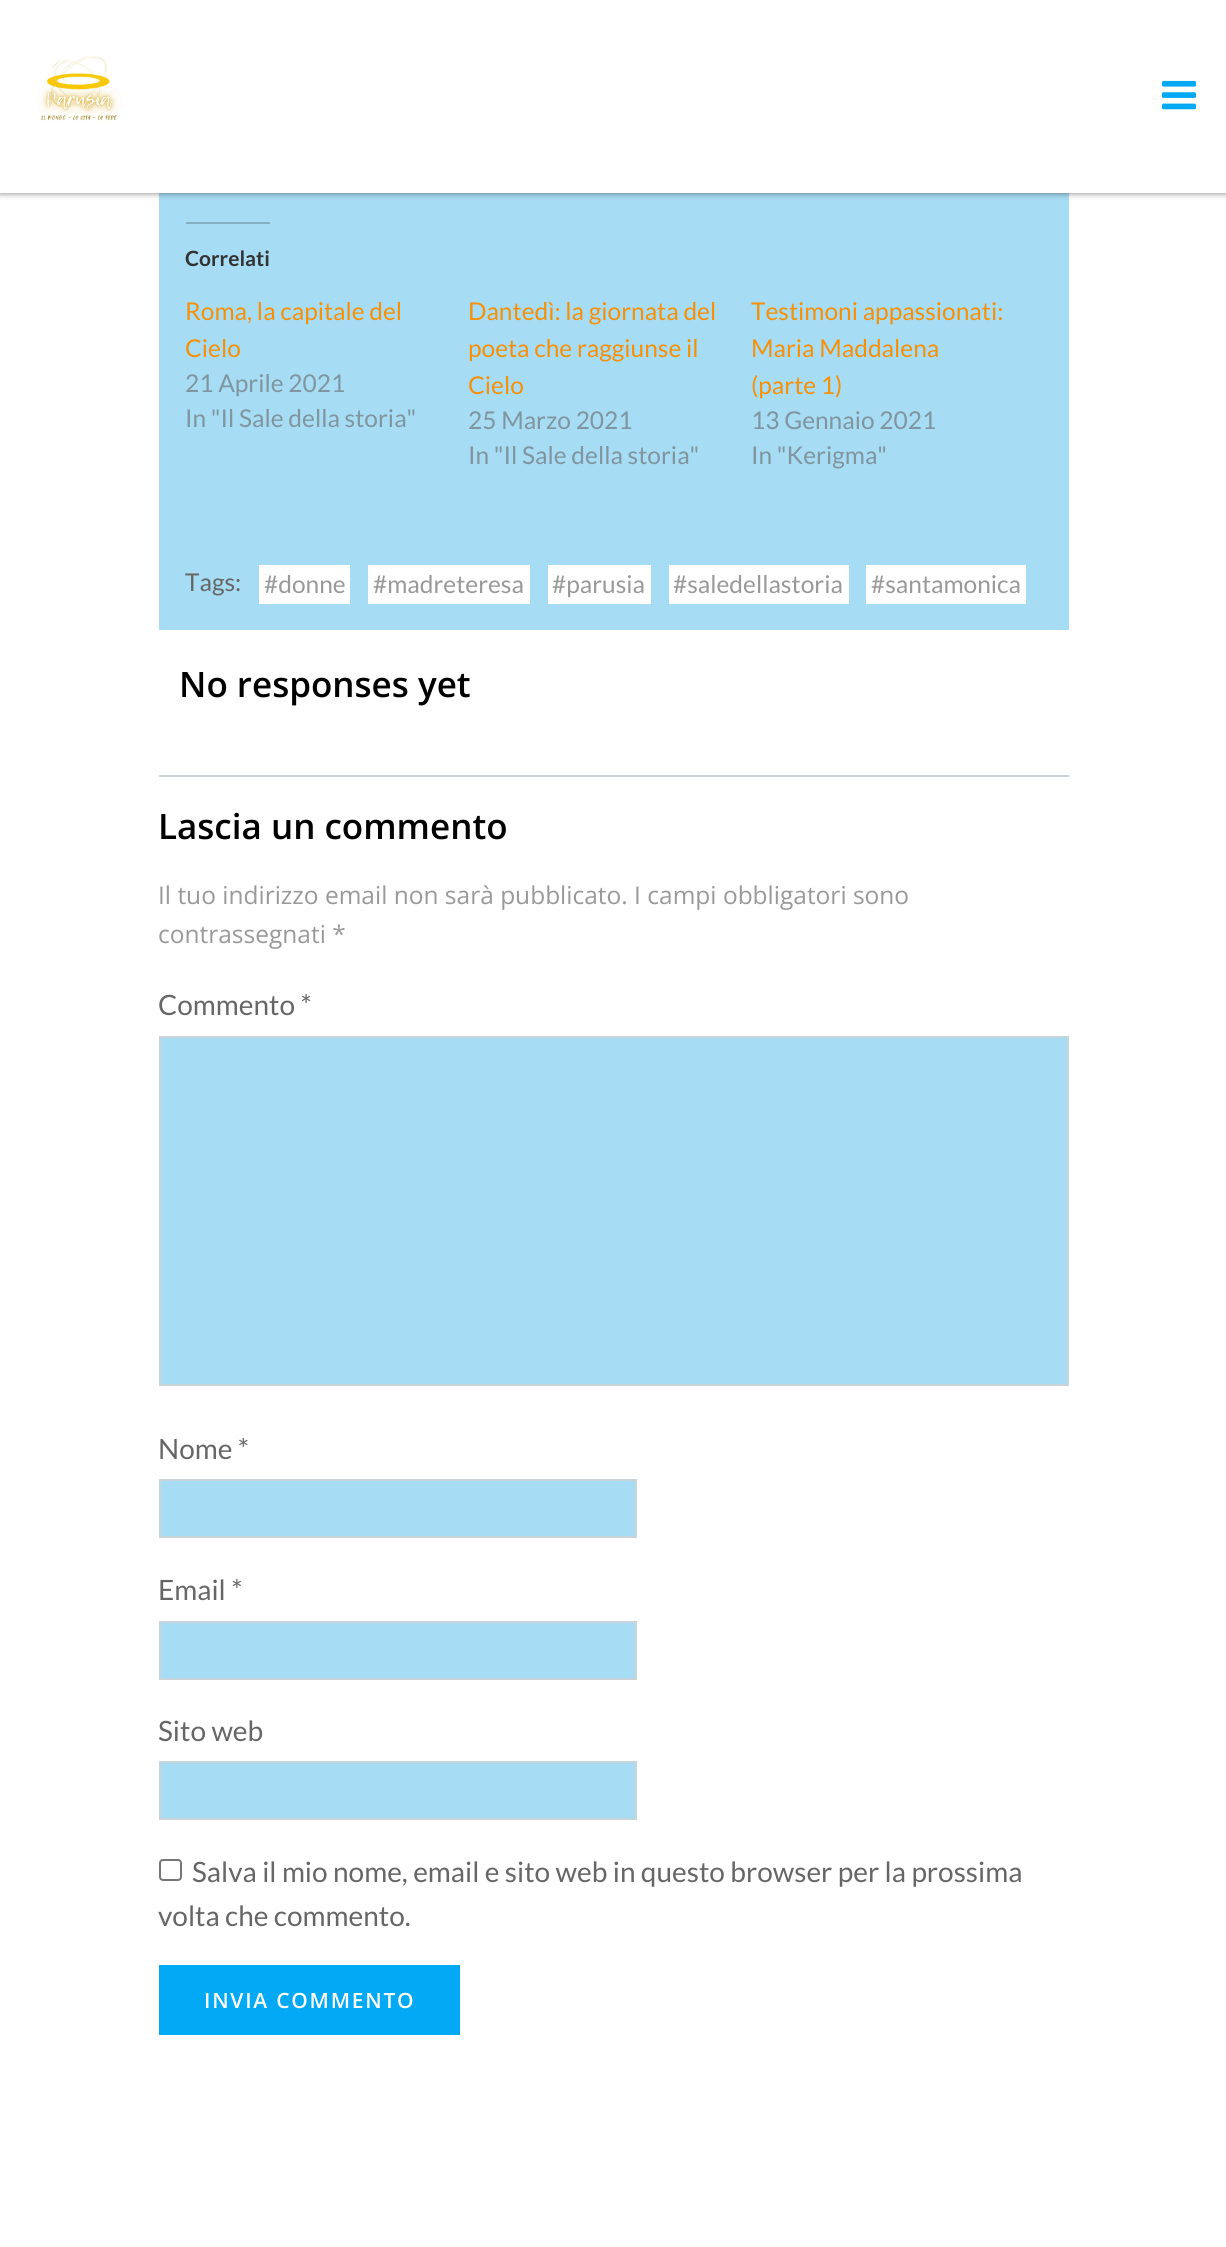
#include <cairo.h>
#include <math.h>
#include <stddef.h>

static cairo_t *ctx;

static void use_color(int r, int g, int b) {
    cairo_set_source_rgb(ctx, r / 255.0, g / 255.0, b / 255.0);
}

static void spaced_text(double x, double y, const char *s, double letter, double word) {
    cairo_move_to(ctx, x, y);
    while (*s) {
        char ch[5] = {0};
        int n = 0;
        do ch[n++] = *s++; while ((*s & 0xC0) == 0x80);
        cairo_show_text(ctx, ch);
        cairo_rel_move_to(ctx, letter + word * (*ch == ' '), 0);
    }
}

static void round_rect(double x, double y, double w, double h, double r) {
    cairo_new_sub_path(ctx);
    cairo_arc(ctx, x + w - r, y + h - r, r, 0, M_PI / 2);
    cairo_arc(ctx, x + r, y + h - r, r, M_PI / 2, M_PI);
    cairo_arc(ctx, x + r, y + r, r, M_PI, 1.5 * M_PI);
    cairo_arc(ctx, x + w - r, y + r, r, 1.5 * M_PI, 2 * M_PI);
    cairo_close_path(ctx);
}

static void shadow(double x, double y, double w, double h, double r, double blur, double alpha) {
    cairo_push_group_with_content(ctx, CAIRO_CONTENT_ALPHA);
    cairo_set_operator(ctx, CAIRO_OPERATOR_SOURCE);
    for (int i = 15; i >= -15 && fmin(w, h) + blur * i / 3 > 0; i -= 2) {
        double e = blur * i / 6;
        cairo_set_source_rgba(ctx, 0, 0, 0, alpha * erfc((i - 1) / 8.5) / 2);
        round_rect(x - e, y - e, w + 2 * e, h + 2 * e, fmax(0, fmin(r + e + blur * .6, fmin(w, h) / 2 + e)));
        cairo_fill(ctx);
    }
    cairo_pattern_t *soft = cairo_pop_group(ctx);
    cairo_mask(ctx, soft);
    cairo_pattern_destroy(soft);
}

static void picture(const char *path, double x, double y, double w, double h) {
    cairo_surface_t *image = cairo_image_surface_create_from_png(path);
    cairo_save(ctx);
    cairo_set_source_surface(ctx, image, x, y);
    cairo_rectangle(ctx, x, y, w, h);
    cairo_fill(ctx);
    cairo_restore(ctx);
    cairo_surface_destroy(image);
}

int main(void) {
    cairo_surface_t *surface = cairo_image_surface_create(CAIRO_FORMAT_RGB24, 1226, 2247);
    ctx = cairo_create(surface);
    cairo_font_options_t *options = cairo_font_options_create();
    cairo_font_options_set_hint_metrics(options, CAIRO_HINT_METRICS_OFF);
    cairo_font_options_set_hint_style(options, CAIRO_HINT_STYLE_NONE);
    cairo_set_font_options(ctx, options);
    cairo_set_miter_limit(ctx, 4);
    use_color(255, 255, 255);
    cairo_paint(ctx);
    use_color(166, 220, 244);
    cairo_rectangle(ctx, 159, 193, 910, 437);
    cairo_fill(ctx);
    use_color(0, 0, 0);
    shadow(0, 0, 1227, 193, 0, 3.5, 0.5);
    use_color(255, 255, 255);
    cairo_rectangle(ctx, 0, 0, 1226, 193);
    cairo_fill(ctx);
    picture("img1.png", 39, 55, 82, 66);
    picture("img2.png", 1162, 80, 34, 30);
    use_color(133, 176, 195);
    cairo_rectangle(ctx, 186, 222, 84, 2);
    cairo_fill(ctx);
    cairo_select_font_face(ctx, "Lato", CAIRO_FONT_SLANT_NORMAL, CAIRO_FONT_WEIGHT_BOLD);
    cairo_set_font_size(ctx, 21);
    use_color(51, 51, 51);
    cairo_move_to(ctx, 185, 266);
    cairo_show_text(ctx, "Correlati");
    cairo_select_font_face(ctx, "Lato", CAIRO_FONT_SLANT_NORMAL, CAIRO_FONT_WEIGHT_NORMAL);
    cairo_set_font_size(ctx, 24.5);
    use_color(247, 144, 7);
    cairo_move_to(ctx, 185, 320);
    cairo_show_text(ctx, "Roma, la capitale del");
    cairo_save(ctx);
    cairo_rectangle(ctx, 186, 292, 253, 74);
    cairo_clip(ctx);
    cairo_move_to(ctx, 185, 357);
    cairo_show_text(ctx, "Cielo");
    cairo_restore(ctx);
    use_color(128, 149, 159);
    cairo_move_to(ctx, 185, 392);
    cairo_show_text(ctx, "21 Aprile 2021");
    cairo_move_to(ctx, 185, 427);
    cairo_show_text(ctx, "In \"Il Sale della storia\"");
    use_color(247, 144, 7);
    cairo_move_to(ctx, 468, 320);
    cairo_show_text(ctx, "Dantedì: la giornata del");
    cairo_move_to(ctx, 468, 357);
    cairo_show_text(ctx, "poeta che raggiunse il");
    cairo_move_to(ctx, 468, 394);
    cairo_show_text(ctx, "Cielo");
    use_color(128, 149, 159);
    cairo_move_to(ctx, 468, 429);
    cairo_show_text(ctx, "25 Marzo 2021");
    cairo_move_to(ctx, 468, 464);
    cairo_show_text(ctx, "In \"Il Sale della storia\"");
    use_color(247, 144, 7);
    cairo_move_to(ctx, 751, 320);
    cairo_show_text(ctx, "Testimoni appassionati:");
    cairo_move_to(ctx, 751, 357);
    cairo_show_text(ctx, "Maria Maddalena");
    cairo_move_to(ctx, 751, 394);
    cairo_show_text(ctx, "(parte 1)");
    use_color(128, 149, 159);
    cairo_move_to(ctx, 751, 429);
    cairo_show_text(ctx, "13 Gennaio 2021");
    cairo_move_to(ctx, 751, 464);
    cairo_show_text(ctx, "In \"Kerigma\"");
    use_color(102, 102, 102);
    cairo_move_to(ctx, 185, 591);
    cairo_show_text(ctx, "Tags:");
    use_color(255, 255, 255);
    cairo_rectangle(ctx, 259, 565, 91, 39);
    cairo_fill(ctx);
    use_color(153, 153, 153);
    cairo_move_to(ctx, 264, 593);
    cairo_show_text(ctx, "#donne");
    use_color(255, 255, 255);
    cairo_rectangle(ctx, 368, 565, 162, 39);
    cairo_fill(ctx);
    use_color(153, 153, 153);
    cairo_move_to(ctx, 373, 593);
    cairo_show_text(ctx, "#madreteresa");
    use_color(255, 255, 255);
    cairo_rectangle(ctx, 548, 565, 103, 39);
    cairo_fill(ctx);
    use_color(153, 153, 153);
    cairo_move_to(ctx, 552, 593);
    cairo_show_text(ctx, "#parusia");
    use_color(255, 255, 255);
    cairo_rectangle(ctx, 669, 565, 180, 39);
    cairo_fill(ctx);
    use_color(153, 153, 153);
    cairo_move_to(ctx, 673, 593);
    cairo_show_text(ctx, "#saledellastoria");
    use_color(255, 255, 255);
    cairo_rectangle(ctx, 866, 565, 160, 39);
    cairo_fill(ctx);
    use_color(153, 153, 153);
    cairo_move_to(ctx, 871, 593);
    cairo_show_text(ctx, "#santamonica");
    cairo_select_font_face(ctx, "Open Sans SemiBold", CAIRO_FONT_SLANT_NORMAL, CAIRO_FONT_WEIGHT_NORMAL);
    cairo_set_font_size(ctx, 35);
    use_color(0, 0, 0);
    cairo_move_to(ctx, 179, 697);
    cairo_show_text(ctx, "No responses yet");
    use_color(200, 212, 218);
    cairo_rectangle(ctx, 159, 775, 910, 2);
    cairo_fill(ctx);
    use_color(0, 0, 0);
    cairo_move_to(ctx, 158, 839);
    cairo_show_text(ctx, "Lascia un commento");
    cairo_select_font_face(ctx, "Open Sans", CAIRO_FONT_SLANT_NORMAL, CAIRO_FONT_WEIGHT_NORMAL);
    cairo_set_font_size(ctx, 24.5);
    use_color(153, 153, 153);
    cairo_move_to(ctx, 158, 904);
    cairo_show_text(ctx, "Il tuo indirizzo email non sarà pubblicato. I campi obbligatori sono");
    cairo_move_to(ctx, 158, 943);
    cairo_show_text(ctx, "contrassegnati *");
    cairo_select_font_face(ctx, "Lato", CAIRO_FONT_SLANT_NORMAL, CAIRO_FONT_WEIGHT_NORMAL);
    cairo_set_font_size(ctx, 28);
    use_color(102, 102, 102);
    cairo_move_to(ctx, 158, 1015);
    cairo_show_text(ctx, "Commento *");
    use_color(166, 220, 244);
    cairo_rectangle(ctx, 160, 1037, 908, 348);
    cairo_fill_preserve(ctx);
    use_color(200, 212, 218);
    cairo_stroke(ctx);
    use_color(102, 102, 102);
    cairo_move_to(ctx, 158, 1459);
    cairo_show_text(ctx, "Nome *");
    use_color(166, 220, 244);
    cairo_rectangle(ctx, 160, 1480, 476, 57);
    cairo_fill_preserve(ctx);
    use_color(200, 212, 218);
    cairo_stroke(ctx);
    use_color(102, 102, 102);
    cairo_move_to(ctx, 158, 1600);
    cairo_show_text(ctx, "Email *");
    use_color(166, 220, 244);
    cairo_rectangle(ctx, 160, 1622, 476, 57);
    cairo_fill_preserve(ctx);
    use_color(200, 212, 218);
    cairo_stroke(ctx);
    use_color(102, 102, 102);
    cairo_move_to(ctx, 158, 1741);
    cairo_show_text(ctx, "Sito web");
    use_color(166, 220, 244);
    cairo_rectangle(ctx, 160, 1762, 476, 57);
    cairo_fill_preserve(ctx);
    use_color(200, 212, 218);
    cairo_stroke(ctx);
    round_rect(160, 1860, 21, 20, 3);
    use_color(118, 118, 118);
    cairo_stroke(ctx);
    use_color(102, 102, 102);
    cairo_move_to(ctx, 192, 1882);
    cairo_show_text(ctx, "Salva il mio nome, email e sito web in questo browser per la prossima");
    cairo_move_to(ctx, 158, 1926);
    cairo_show_text(ctx, "volta che commento.");
    use_color(3, 169, 244);
    cairo_rectangle(ctx, 159, 1965, 301, 70);
    cairo_fill(ctx);
    cairo_select_font_face(ctx, "Open Sans SemiBold", CAIRO_FONT_SLANT_NORMAL, CAIRO_FONT_WEIGHT_NORMAL);
    cairo_set_font_size(ctx, 21);
    use_color(255, 255, 255);
    spaced_text(204, 2008, "INVIA COMMENTO", 1.75, 0);
    cairo_surface_write_to_png(surface, "result.png");
    cairo_font_options_destroy(options);
    cairo_destroy(ctx);
    cairo_surface_destroy(surface);
    return 0;
}
